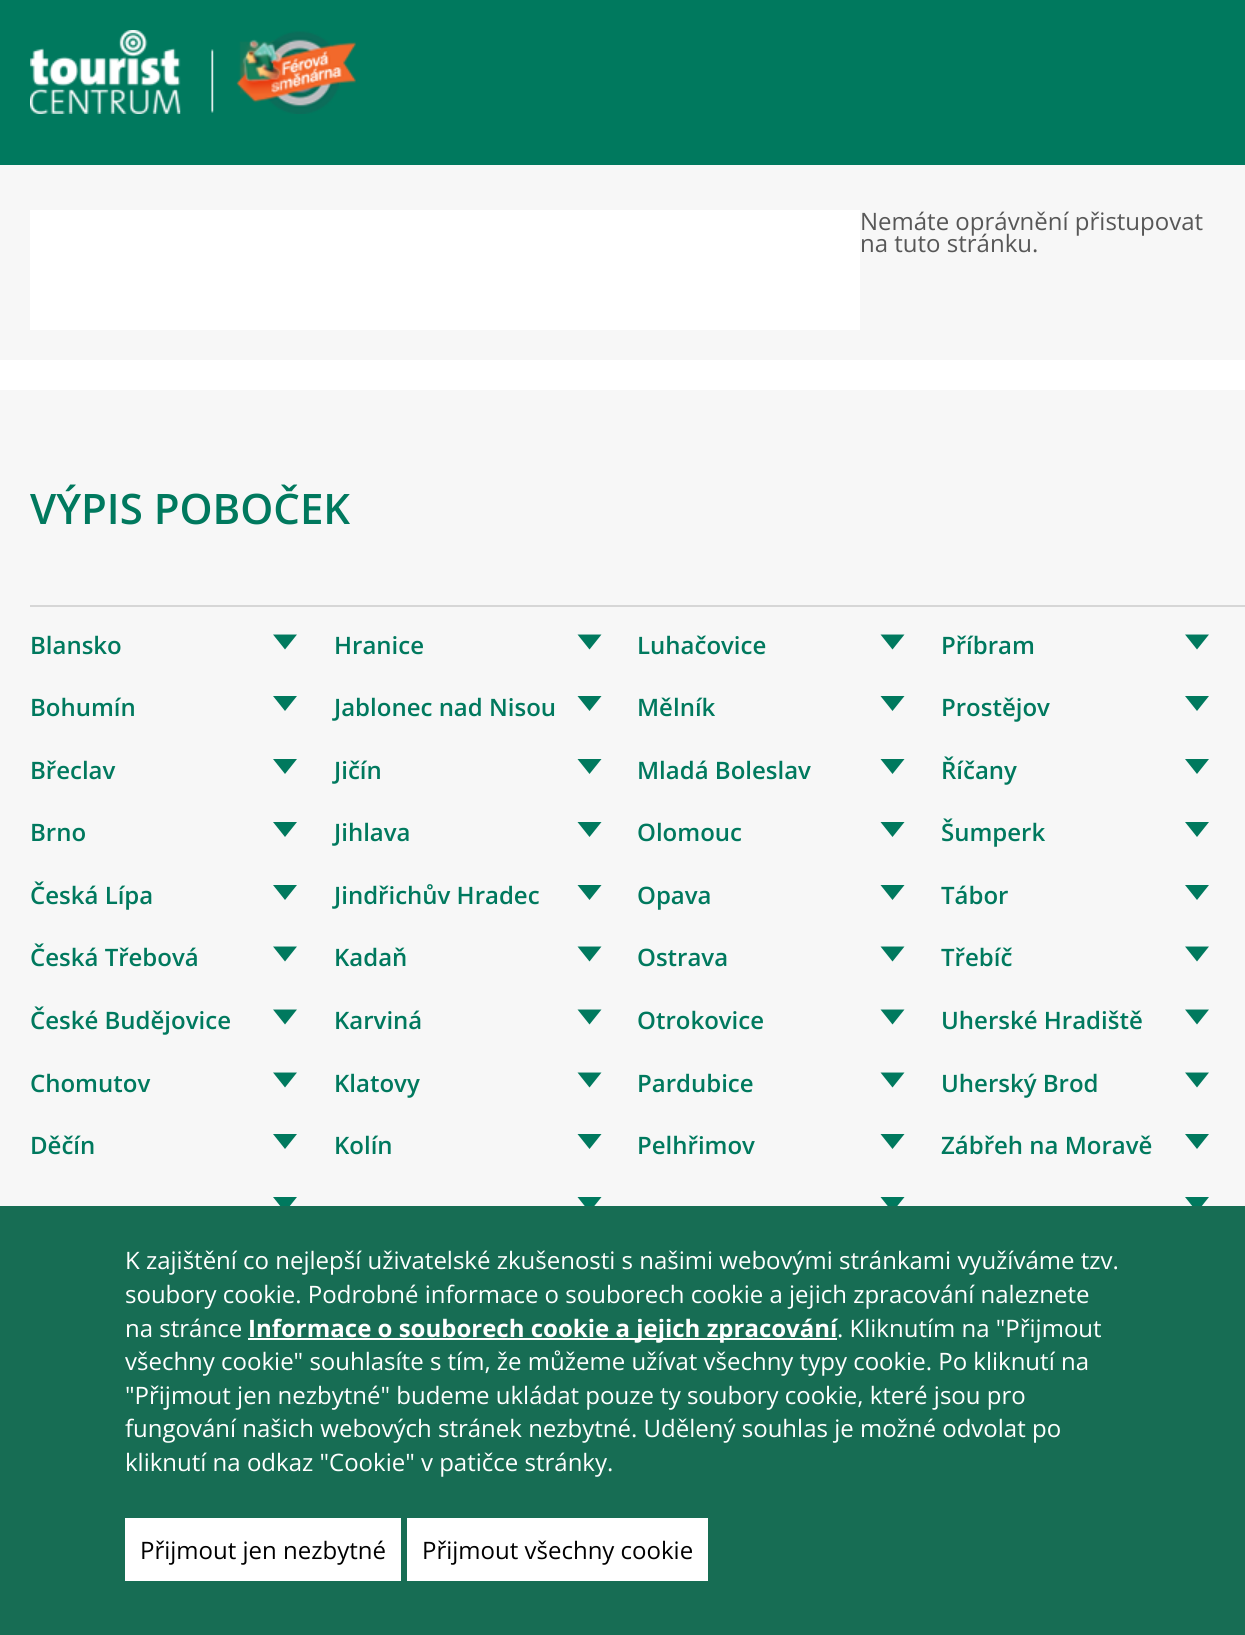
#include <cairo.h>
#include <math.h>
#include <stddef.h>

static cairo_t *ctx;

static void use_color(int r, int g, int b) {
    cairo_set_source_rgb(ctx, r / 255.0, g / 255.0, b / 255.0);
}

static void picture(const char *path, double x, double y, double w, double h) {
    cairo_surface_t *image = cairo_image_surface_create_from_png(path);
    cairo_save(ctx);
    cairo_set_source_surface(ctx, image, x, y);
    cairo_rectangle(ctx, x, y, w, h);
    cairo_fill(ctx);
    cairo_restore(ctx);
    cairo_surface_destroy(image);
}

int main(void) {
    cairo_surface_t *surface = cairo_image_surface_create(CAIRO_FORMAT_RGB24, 1245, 1635);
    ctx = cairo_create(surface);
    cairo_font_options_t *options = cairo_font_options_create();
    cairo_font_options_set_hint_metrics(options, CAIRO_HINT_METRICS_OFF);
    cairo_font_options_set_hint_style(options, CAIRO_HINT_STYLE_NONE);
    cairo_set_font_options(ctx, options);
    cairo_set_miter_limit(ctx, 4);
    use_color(255, 255, 255);
    cairo_paint(ctx);
    use_color(0, 121, 94);
    cairo_rectangle(ctx, 0, 0, 1245, 165);
    cairo_fill(ctx);
    picture("img1.png", 30, 30, 326, 84);
    use_color(247, 247, 247);
    cairo_rectangle(ctx, 0, 165, 1245, 195);
    cairo_fill(ctx);
    use_color(255, 255, 255);
    cairo_rectangle(ctx, 30, 210, 830, 120);
    cairo_fill(ctx);
    cairo_select_font_face(ctx, "Open Sans", CAIRO_FONT_SLANT_NORMAL, CAIRO_FONT_WEIGHT_NORMAL);
    cairo_set_font_size(ctx, 24);
    use_color(87, 87, 87);
    cairo_move_to(ctx, 860, 230);
    cairo_show_text(ctx, "Nemáte oprávnění přistupovat");
    cairo_move_to(ctx, 860, 252);
    cairo_show_text(ctx, "na tuto stránku.");
    use_color(247, 247, 247);
    cairo_rectangle(ctx, 0, 390, 1245, 816);
    cairo_fill(ctx);
    use_color(214, 214, 214);
    cairo_rectangle(ctx, 30, 605, 1215, 2);
    cairo_fill(ctx);
    cairo_select_font_face(ctx, "Open Sans SemiBold", CAIRO_FONT_SLANT_NORMAL, CAIRO_FONT_WEIGHT_NORMAL);
    cairo_set_font_size(ctx, 42);
    use_color(0, 121, 94);
    cairo_move_to(ctx, 30, 524);
    cairo_show_text(ctx, "VÝPIS POBOČEK");
    cairo_set_font_size(ctx, 24);
    cairo_move_to(ctx, 30, 654);
    cairo_show_text(ctx, "Blansko");
    cairo_new_path(ctx);
    cairo_move_to(ctx, 273, 634.5);
    cairo_line_to(ctx, 297, 634.5);
    cairo_line_to(ctx, 285, 649.5);
    cairo_close_path(ctx);
    cairo_fill(ctx);
    cairo_move_to(ctx, 30, 716);
    cairo_show_text(ctx, "Bohumín");
    cairo_new_path(ctx);
    cairo_move_to(ctx, 273, 696);
    cairo_line_to(ctx, 297, 696);
    cairo_line_to(ctx, 285, 711);
    cairo_close_path(ctx);
    cairo_fill(ctx);
    cairo_move_to(ctx, 30, 779);
    cairo_show_text(ctx, "Břeclav");
    cairo_new_path(ctx);
    cairo_move_to(ctx, 273, 759);
    cairo_line_to(ctx, 297, 759);
    cairo_line_to(ctx, 285, 774);
    cairo_close_path(ctx);
    cairo_fill(ctx);
    cairo_move_to(ctx, 30, 841);
    cairo_show_text(ctx, "Brno");
    cairo_new_path(ctx);
    cairo_move_to(ctx, 273, 822);
    cairo_line_to(ctx, 297, 822);
    cairo_line_to(ctx, 285, 837);
    cairo_close_path(ctx);
    cairo_fill(ctx);
    cairo_move_to(ctx, 30, 904);
    cairo_show_text(ctx, "Česká Lípa");
    cairo_new_path(ctx);
    cairo_move_to(ctx, 273, 885);
    cairo_line_to(ctx, 297, 885);
    cairo_line_to(ctx, 285, 900);
    cairo_close_path(ctx);
    cairo_fill(ctx);
    cairo_move_to(ctx, 30, 966);
    cairo_show_text(ctx, "Česká Třebová");
    cairo_new_path(ctx);
    cairo_move_to(ctx, 273, 946.5);
    cairo_line_to(ctx, 297, 946.5);
    cairo_line_to(ctx, 285, 961.5);
    cairo_close_path(ctx);
    cairo_fill(ctx);
    cairo_move_to(ctx, 30, 1029);
    cairo_show_text(ctx, "České Budějovice");
    cairo_new_path(ctx);
    cairo_move_to(ctx, 273, 1009.5);
    cairo_line_to(ctx, 297, 1009.5);
    cairo_line_to(ctx, 285, 1024.5);
    cairo_close_path(ctx);
    cairo_fill(ctx);
    cairo_move_to(ctx, 30, 1092);
    cairo_show_text(ctx, "Chomutov");
    cairo_new_path(ctx);
    cairo_move_to(ctx, 273, 1072.5);
    cairo_line_to(ctx, 297, 1072.5);
    cairo_line_to(ctx, 285, 1087.5);
    cairo_close_path(ctx);
    cairo_fill(ctx);
    cairo_move_to(ctx, 30, 1154);
    cairo_show_text(ctx, "Děčín");
    cairo_new_path(ctx);
    cairo_move_to(ctx, 273, 1134);
    cairo_line_to(ctx, 297, 1134);
    cairo_line_to(ctx, 285, 1149);
    cairo_close_path(ctx);
    cairo_fill(ctx);
    cairo_new_path(ctx);
    cairo_move_to(ctx, 273, 1197);
    cairo_line_to(ctx, 297, 1197);
    cairo_line_to(ctx, 285, 1212);
    cairo_close_path(ctx);
    cairo_fill(ctx);
    cairo_move_to(ctx, 334, 654);
    cairo_show_text(ctx, "Hranice");
    cairo_new_path(ctx);
    cairo_move_to(ctx, 577.5, 634.5);
    cairo_line_to(ctx, 601.5, 634.5);
    cairo_line_to(ctx, 589.5, 649.5);
    cairo_close_path(ctx);
    cairo_fill(ctx);
    cairo_move_to(ctx, 334, 716);
    cairo_show_text(ctx, "Jablonec nad Nisou");
    cairo_new_path(ctx);
    cairo_move_to(ctx, 577.5, 696);
    cairo_line_to(ctx, 601.5, 696);
    cairo_line_to(ctx, 589.5, 711);
    cairo_close_path(ctx);
    cairo_fill(ctx);
    cairo_move_to(ctx, 334, 779);
    cairo_show_text(ctx, "Jičín");
    cairo_new_path(ctx);
    cairo_move_to(ctx, 577.5, 759);
    cairo_line_to(ctx, 601.5, 759);
    cairo_line_to(ctx, 589.5, 774);
    cairo_close_path(ctx);
    cairo_fill(ctx);
    cairo_move_to(ctx, 334, 841);
    cairo_show_text(ctx, "Jihlava");
    cairo_new_path(ctx);
    cairo_move_to(ctx, 577.5, 822);
    cairo_line_to(ctx, 601.5, 822);
    cairo_line_to(ctx, 589.5, 837);
    cairo_close_path(ctx);
    cairo_fill(ctx);
    cairo_move_to(ctx, 334, 904);
    cairo_show_text(ctx, "Jindřichův Hradec");
    cairo_new_path(ctx);
    cairo_move_to(ctx, 577.5, 885);
    cairo_line_to(ctx, 601.5, 885);
    cairo_line_to(ctx, 589.5, 900);
    cairo_close_path(ctx);
    cairo_fill(ctx);
    cairo_move_to(ctx, 334, 966);
    cairo_show_text(ctx, "Kadaň");
    cairo_new_path(ctx);
    cairo_move_to(ctx, 577.5, 946.5);
    cairo_line_to(ctx, 601.5, 946.5);
    cairo_line_to(ctx, 589.5, 961.5);
    cairo_close_path(ctx);
    cairo_fill(ctx);
    cairo_move_to(ctx, 334, 1029);
    cairo_show_text(ctx, "Karviná");
    cairo_new_path(ctx);
    cairo_move_to(ctx, 577.5, 1009.5);
    cairo_line_to(ctx, 601.5, 1009.5);
    cairo_line_to(ctx, 589.5, 1024.5);
    cairo_close_path(ctx);
    cairo_fill(ctx);
    cairo_move_to(ctx, 334, 1092);
    cairo_show_text(ctx, "Klatovy");
    cairo_new_path(ctx);
    cairo_move_to(ctx, 577.5, 1072.5);
    cairo_line_to(ctx, 601.5, 1072.5);
    cairo_line_to(ctx, 589.5, 1087.5);
    cairo_close_path(ctx);
    cairo_fill(ctx);
    cairo_move_to(ctx, 334, 1154);
    cairo_show_text(ctx, "Kolín");
    cairo_new_path(ctx);
    cairo_move_to(ctx, 577.5, 1134);
    cairo_line_to(ctx, 601.5, 1134);
    cairo_line_to(ctx, 589.5, 1149);
    cairo_close_path(ctx);
    cairo_fill(ctx);
    cairo_new_path(ctx);
    cairo_move_to(ctx, 577.5, 1197);
    cairo_line_to(ctx, 601.5, 1197);
    cairo_line_to(ctx, 589.5, 1212);
    cairo_close_path(ctx);
    cairo_fill(ctx);
    cairo_move_to(ctx, 637, 654);
    cairo_show_text(ctx, "Luhačovice");
    cairo_new_path(ctx);
    cairo_move_to(ctx, 880.5, 634.5);
    cairo_line_to(ctx, 904.5, 634.5);
    cairo_line_to(ctx, 892.5, 649.5);
    cairo_close_path(ctx);
    cairo_fill(ctx);
    cairo_move_to(ctx, 637, 716);
    cairo_show_text(ctx, "Mělník");
    cairo_new_path(ctx);
    cairo_move_to(ctx, 880.5, 696);
    cairo_line_to(ctx, 904.5, 696);
    cairo_line_to(ctx, 892.5, 711);
    cairo_close_path(ctx);
    cairo_fill(ctx);
    cairo_move_to(ctx, 637, 779);
    cairo_show_text(ctx, "Mladá Boleslav");
    cairo_new_path(ctx);
    cairo_move_to(ctx, 880.5, 759);
    cairo_line_to(ctx, 904.5, 759);
    cairo_line_to(ctx, 892.5, 774);
    cairo_close_path(ctx);
    cairo_fill(ctx);
    cairo_move_to(ctx, 637, 841);
    cairo_show_text(ctx, "Olomouc");
    cairo_new_path(ctx);
    cairo_move_to(ctx, 880.5, 822);
    cairo_line_to(ctx, 904.5, 822);
    cairo_line_to(ctx, 892.5, 837);
    cairo_close_path(ctx);
    cairo_fill(ctx);
    cairo_move_to(ctx, 637, 904);
    cairo_show_text(ctx, "Opava");
    cairo_new_path(ctx);
    cairo_move_to(ctx, 880.5, 885);
    cairo_line_to(ctx, 904.5, 885);
    cairo_line_to(ctx, 892.5, 900);
    cairo_close_path(ctx);
    cairo_fill(ctx);
    cairo_move_to(ctx, 637, 966);
    cairo_show_text(ctx, "Ostrava");
    cairo_new_path(ctx);
    cairo_move_to(ctx, 880.5, 946.5);
    cairo_line_to(ctx, 904.5, 946.5);
    cairo_line_to(ctx, 892.5, 961.5);
    cairo_close_path(ctx);
    cairo_fill(ctx);
    cairo_move_to(ctx, 637, 1029);
    cairo_show_text(ctx, "Otrokovice");
    cairo_new_path(ctx);
    cairo_move_to(ctx, 880.5, 1009.5);
    cairo_line_to(ctx, 904.5, 1009.5);
    cairo_line_to(ctx, 892.5, 1024.5);
    cairo_close_path(ctx);
    cairo_fill(ctx);
    cairo_move_to(ctx, 637, 1092);
    cairo_show_text(ctx, "Pardubice");
    cairo_new_path(ctx);
    cairo_move_to(ctx, 880.5, 1072.5);
    cairo_line_to(ctx, 904.5, 1072.5);
    cairo_line_to(ctx, 892.5, 1087.5);
    cairo_close_path(ctx);
    cairo_fill(ctx);
    cairo_move_to(ctx, 637, 1154);
    cairo_show_text(ctx, "Pelhřimov");
    cairo_new_path(ctx);
    cairo_move_to(ctx, 880.5, 1134);
    cairo_line_to(ctx, 904.5, 1134);
    cairo_line_to(ctx, 892.5, 1149);
    cairo_close_path(ctx);
    cairo_fill(ctx);
    cairo_new_path(ctx);
    cairo_move_to(ctx, 880.5, 1197);
    cairo_line_to(ctx, 904.5, 1197);
    cairo_line_to(ctx, 892.5, 1212);
    cairo_close_path(ctx);
    cairo_fill(ctx);
    cairo_move_to(ctx, 941, 654);
    cairo_show_text(ctx, "Příbram");
    cairo_new_path(ctx);
    cairo_move_to(ctx, 1185, 634.5);
    cairo_line_to(ctx, 1209, 634.5);
    cairo_line_to(ctx, 1197, 649.5);
    cairo_close_path(ctx);
    cairo_fill(ctx);
    cairo_move_to(ctx, 941, 716);
    cairo_show_text(ctx, "Prostějov");
    cairo_new_path(ctx);
    cairo_move_to(ctx, 1185, 696);
    cairo_line_to(ctx, 1209, 696);
    cairo_line_to(ctx, 1197, 711);
    cairo_close_path(ctx);
    cairo_fill(ctx);
    cairo_move_to(ctx, 941, 779);
    cairo_show_text(ctx, "Říčany");
    cairo_new_path(ctx);
    cairo_move_to(ctx, 1185, 759);
    cairo_line_to(ctx, 1209, 759);
    cairo_line_to(ctx, 1197, 774);
    cairo_close_path(ctx);
    cairo_fill(ctx);
    cairo_move_to(ctx, 941, 841);
    cairo_show_text(ctx, "Šumperk");
    cairo_new_path(ctx);
    cairo_move_to(ctx, 1185, 822);
    cairo_line_to(ctx, 1209, 822);
    cairo_line_to(ctx, 1197, 837);
    cairo_close_path(ctx);
    cairo_fill(ctx);
    cairo_move_to(ctx, 941, 904);
    cairo_show_text(ctx, "Tábor");
    cairo_new_path(ctx);
    cairo_move_to(ctx, 1185, 885);
    cairo_line_to(ctx, 1209, 885);
    cairo_line_to(ctx, 1197, 900);
    cairo_close_path(ctx);
    cairo_fill(ctx);
    cairo_move_to(ctx, 941, 966);
    cairo_show_text(ctx, "Třebíč");
    cairo_new_path(ctx);
    cairo_move_to(ctx, 1185, 946.5);
    cairo_line_to(ctx, 1209, 946.5);
    cairo_line_to(ctx, 1197, 961.5);
    cairo_close_path(ctx);
    cairo_fill(ctx);
    cairo_move_to(ctx, 941, 1029);
    cairo_show_text(ctx, "Uherské Hradiště");
    cairo_new_path(ctx);
    cairo_move_to(ctx, 1185, 1009.5);
    cairo_line_to(ctx, 1209, 1009.5);
    cairo_line_to(ctx, 1197, 1024.5);
    cairo_close_path(ctx);
    cairo_fill(ctx);
    cairo_move_to(ctx, 941, 1092);
    cairo_show_text(ctx, "Uherský Brod");
    cairo_new_path(ctx);
    cairo_move_to(ctx, 1185, 1072.5);
    cairo_line_to(ctx, 1209, 1072.5);
    cairo_line_to(ctx, 1197, 1087.5);
    cairo_close_path(ctx);
    cairo_fill(ctx);
    cairo_move_to(ctx, 941, 1154);
    cairo_show_text(ctx, "Zábřeh na Moravě");
    cairo_new_path(ctx);
    cairo_move_to(ctx, 1185, 1134);
    cairo_line_to(ctx, 1209, 1134);
    cairo_line_to(ctx, 1197, 1149);
    cairo_close_path(ctx);
    cairo_fill(ctx);
    cairo_new_path(ctx);
    cairo_move_to(ctx, 1185, 1197);
    cairo_line_to(ctx, 1209, 1197);
    cairo_line_to(ctx, 1197, 1212);
    cairo_close_path(ctx);
    cairo_fill(ctx);
    use_color(23, 109, 84);
    cairo_rectangle(ctx, 0, 1206, 1245, 429);
    cairo_fill(ctx);
    cairo_select_font_face(ctx, "Open Sans", CAIRO_FONT_SLANT_NORMAL, CAIRO_FONT_WEIGHT_NORMAL);
    use_color(255, 255, 255);
    cairo_move_to(ctx, 125, 1269);
    cairo_show_text(ctx, "K zajištění co nejlepší uživatelské zkušenosti s našimi webovými stránkami využíváme tzv.");
    cairo_move_to(ctx, 125, 1303);
    cairo_show_text(ctx, "soubory cookie. Podrobné informace o souborech cookie a jejich zpracování naleznete");
    cairo_move_to(ctx, 125, 1337);
    cairo_show_text(ctx, "na stránce");
    cairo_rectangle(ctx, 248, 1338, 589, 2);
    cairo_fill(ctx);
    cairo_select_font_face(ctx, "Open Sans", CAIRO_FONT_SLANT_NORMAL, CAIRO_FONT_WEIGHT_BOLD);
    cairo_move_to(ctx, 248, 1337);
    cairo_show_text(ctx, "Informace o souborech cookie a jejich zpracování");
    cairo_select_font_face(ctx, "Open Sans", CAIRO_FONT_SLANT_NORMAL, CAIRO_FONT_WEIGHT_NORMAL);
    cairo_move_to(ctx, 837, 1337);
    cairo_show_text(ctx, ". Kliknutím na \"Přijmout");
    cairo_move_to(ctx, 125, 1370);
    cairo_show_text(ctx, "všechny cookie\" souhlasíte s tím, že můžeme užívat všechny typy cookie. Po kliknutí na");
    cairo_move_to(ctx, 125, 1404);
    cairo_show_text(ctx, "\"Přijmout jen nezbytné\" budeme ukládat pouze ty soubory cookie, které jsou pro");
    cairo_move_to(ctx, 125, 1437);
    cairo_show_text(ctx, "fungování našich webových stránek nezbytné. Udělený souhlas je možné odvolat po");
    cairo_move_to(ctx, 125, 1471);
    cairo_show_text(ctx, "kliknutí na odkaz \"Cookie\" v patičce stránky.");
    cairo_rectangle(ctx, 125, 1518, 276, 63);
    cairo_fill(ctx);
    use_color(0, 0, 0);
    cairo_move_to(ctx, 140, 1559);
    cairo_show_text(ctx, "Přijmout jen nezbytné");
    use_color(255, 255, 255);
    cairo_rectangle(ctx, 407, 1518, 301, 63);
    cairo_fill(ctx);
    use_color(0, 0, 0);
    cairo_move_to(ctx, 422, 1559);
    cairo_show_text(ctx, "Přijmout všechny cookie");
    cairo_surface_write_to_png(surface, "result.png");
    cairo_font_options_destroy(options);
    cairo_destroy(ctx);
    cairo_surface_destroy(surface);
    return 0;
}
